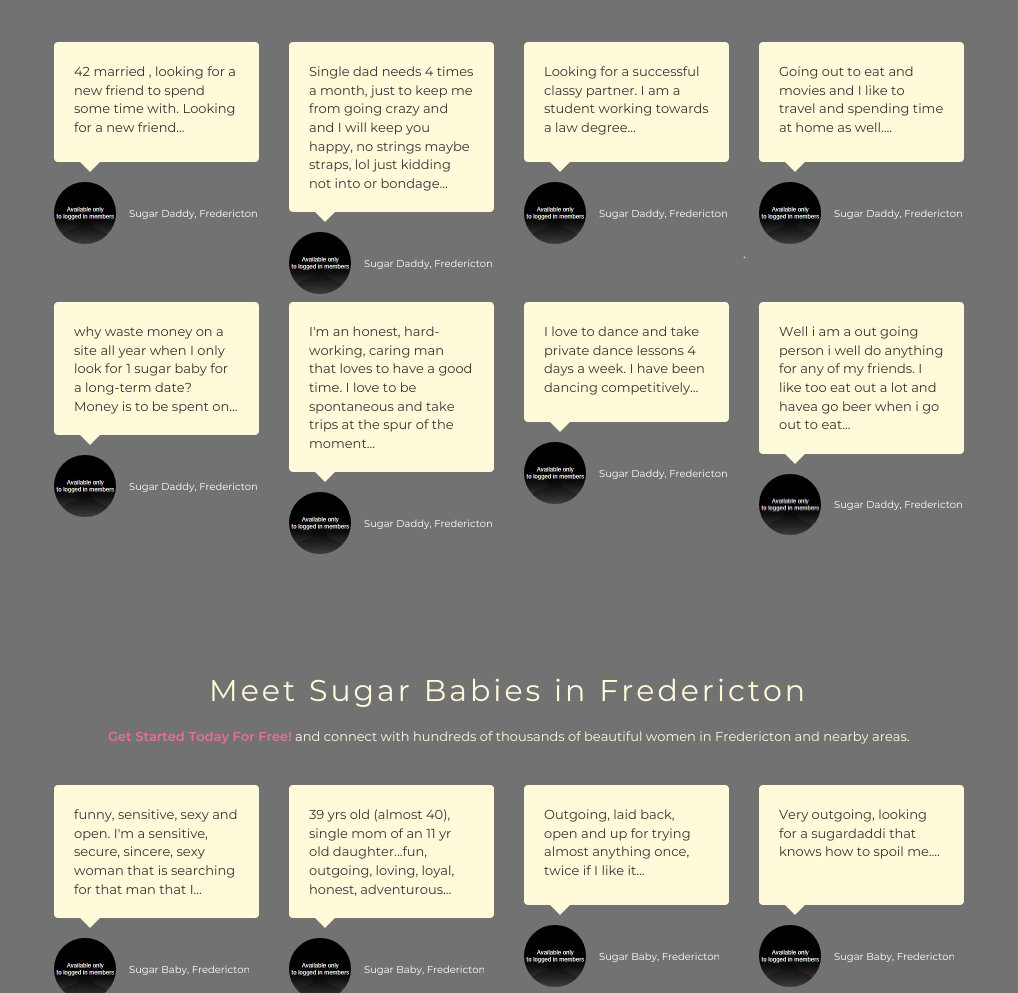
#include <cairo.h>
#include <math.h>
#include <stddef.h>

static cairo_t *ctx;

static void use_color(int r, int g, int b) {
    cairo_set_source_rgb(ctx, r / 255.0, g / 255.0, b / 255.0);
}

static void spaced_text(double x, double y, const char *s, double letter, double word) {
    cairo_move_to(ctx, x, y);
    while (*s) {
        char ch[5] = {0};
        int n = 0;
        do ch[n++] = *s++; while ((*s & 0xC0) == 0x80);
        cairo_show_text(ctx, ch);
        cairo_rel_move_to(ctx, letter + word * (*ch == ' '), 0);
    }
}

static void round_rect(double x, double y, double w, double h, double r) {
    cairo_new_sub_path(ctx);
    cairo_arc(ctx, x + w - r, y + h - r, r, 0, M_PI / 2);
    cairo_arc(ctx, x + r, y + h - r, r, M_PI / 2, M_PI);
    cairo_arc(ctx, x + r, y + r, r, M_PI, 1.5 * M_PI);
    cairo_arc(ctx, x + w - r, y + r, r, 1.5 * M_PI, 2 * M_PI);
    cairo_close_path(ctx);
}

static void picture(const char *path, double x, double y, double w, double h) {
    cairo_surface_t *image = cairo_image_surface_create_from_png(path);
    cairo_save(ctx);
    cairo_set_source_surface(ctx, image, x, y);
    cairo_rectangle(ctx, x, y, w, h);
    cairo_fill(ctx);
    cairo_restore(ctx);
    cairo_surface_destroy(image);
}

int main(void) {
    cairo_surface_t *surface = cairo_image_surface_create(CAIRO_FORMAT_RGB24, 1018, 993);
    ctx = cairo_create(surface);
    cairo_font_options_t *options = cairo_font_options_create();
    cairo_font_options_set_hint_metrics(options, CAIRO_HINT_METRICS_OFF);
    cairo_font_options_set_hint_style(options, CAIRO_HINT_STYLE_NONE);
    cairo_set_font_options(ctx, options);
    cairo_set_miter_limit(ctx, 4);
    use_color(114, 114, 114);
    cairo_paint(ctx);
    use_color(255, 251, 218);
    round_rect(54, 42, 205, 120, 4);
    cairo_fill(ctx);
    cairo_select_font_face(ctx, "Montserrat", CAIRO_FONT_SLANT_NORMAL, CAIRO_FONT_WEIGHT_NORMAL);
    cairo_set_font_size(ctx, 13);
    use_color(51, 51, 51);
    cairo_move_to(ctx, 74, 76);
    cairo_show_text(ctx, "42 married , looking for a");
    cairo_move_to(ctx, 74, 95);
    cairo_show_text(ctx, "new friend to spend");
    cairo_move_to(ctx, 74, 113);
    cairo_show_text(ctx, "some time with. Looking");
    cairo_move_to(ctx, 74, 132);
    cairo_show_text(ctx, "for a new friend...");
    use_color(255, 251, 218);
    cairo_new_path(ctx);
    cairo_move_to(ctx, 75, 157);
    cairo_line_to(ctx, 105, 157);
    cairo_line_to(ctx, 90, 172);
    cairo_close_path(ctx);
    cairo_fill(ctx);
    picture("img1.png", 54, 182, 62, 62);
    cairo_set_font_size(ctx, 10);
    use_color(255, 255, 255);
    cairo_move_to(ctx, 129, 217);
    cairo_show_text(ctx, "Sugar Daddy, Fredericton");
    use_color(255, 251, 218);
    round_rect(289, 42, 205, 170, 4);
    cairo_fill(ctx);
    cairo_set_font_size(ctx, 13);
    use_color(51, 51, 51);
    cairo_move_to(ctx, 309, 76);
    cairo_show_text(ctx, "Single dad needs 4 times");
    cairo_move_to(ctx, 309, 95);
    cairo_show_text(ctx, "a month, just to keep me");
    cairo_move_to(ctx, 309, 113);
    cairo_show_text(ctx, "from going crazy and");
    cairo_move_to(ctx, 309, 132);
    cairo_show_text(ctx, "and I will keep you");
    cairo_move_to(ctx, 309, 151);
    cairo_show_text(ctx, "happy, no strings maybe");
    cairo_move_to(ctx, 309, 169);
    cairo_show_text(ctx, "straps, lol just kidding");
    cairo_move_to(ctx, 309, 188);
    cairo_show_text(ctx, "not into or bondage...");
    use_color(255, 251, 218);
    cairo_new_path(ctx);
    cairo_move_to(ctx, 310, 207);
    cairo_line_to(ctx, 340, 207);
    cairo_line_to(ctx, 325, 222);
    cairo_close_path(ctx);
    cairo_fill(ctx);
    picture("img2.png", 289, 232, 62, 62);
    cairo_set_font_size(ctx, 10);
    use_color(255, 255, 255);
    cairo_move_to(ctx, 364, 267);
    cairo_show_text(ctx, "Sugar Daddy, Fredericton");
    use_color(255, 251, 218);
    round_rect(524, 42, 205, 120, 4);
    cairo_fill(ctx);
    cairo_set_font_size(ctx, 13);
    use_color(51, 51, 51);
    cairo_move_to(ctx, 544, 76);
    cairo_show_text(ctx, "Looking for a successful");
    cairo_move_to(ctx, 544, 95);
    cairo_show_text(ctx, "classy partner. I am a");
    cairo_move_to(ctx, 544, 113);
    cairo_show_text(ctx, "student working towards");
    cairo_move_to(ctx, 544, 132);
    cairo_show_text(ctx, "a law degree...");
    use_color(255, 251, 218);
    cairo_new_path(ctx);
    cairo_move_to(ctx, 545, 157);
    cairo_line_to(ctx, 575, 157);
    cairo_line_to(ctx, 560, 172);
    cairo_close_path(ctx);
    cairo_fill(ctx);
    picture("img1.png", 524, 182, 62, 62);
    cairo_set_font_size(ctx, 10);
    use_color(255, 255, 255);
    cairo_move_to(ctx, 599, 217);
    cairo_show_text(ctx, "Sugar Daddy, Fredericton");
    use_color(255, 251, 218);
    round_rect(759, 42, 205, 120, 4);
    cairo_fill(ctx);
    cairo_set_font_size(ctx, 13);
    use_color(51, 51, 51);
    cairo_move_to(ctx, 779, 76);
    cairo_show_text(ctx, "Going out to eat and");
    cairo_move_to(ctx, 779, 95);
    cairo_show_text(ctx, "movies and I like to");
    cairo_move_to(ctx, 779, 113);
    cairo_show_text(ctx, "travel and spending time");
    cairo_move_to(ctx, 779, 132);
    cairo_show_text(ctx, "at home as well....");
    use_color(255, 251, 218);
    cairo_new_path(ctx);
    cairo_move_to(ctx, 780, 157);
    cairo_line_to(ctx, 810, 157);
    cairo_line_to(ctx, 795, 172);
    cairo_close_path(ctx);
    cairo_fill(ctx);
    picture("img3.png", 759, 182, 62, 62);
    cairo_set_font_size(ctx, 10);
    use_color(255, 255, 255);
    cairo_move_to(ctx, 834, 217);
    cairo_show_text(ctx, "Sugar Daddy, Fredericton");
    cairo_set_font_size(ctx, 13);
    use_color(255, 251, 218);
    cairo_move_to(ctx, 743, 258);
    cairo_show_text(ctx, ".");
    round_rect(54, 302, 205, 133, 4);
    cairo_fill(ctx);
    use_color(51, 51, 51);
    cairo_move_to(ctx, 74, 336);
    cairo_show_text(ctx, "why waste money on a");
    cairo_move_to(ctx, 74, 355);
    cairo_show_text(ctx, "site all year when I only");
    cairo_move_to(ctx, 74, 373);
    cairo_show_text(ctx, "look for 1 sugar baby for");
    cairo_move_to(ctx, 74, 392);
    cairo_show_text(ctx, "a long-term date?");
    cairo_move_to(ctx, 74, 411);
    cairo_show_text(ctx, "Money is to be spent on...");
    use_color(255, 251, 218);
    cairo_new_path(ctx);
    cairo_move_to(ctx, 75, 430);
    cairo_line_to(ctx, 105, 430);
    cairo_line_to(ctx, 90, 445);
    cairo_close_path(ctx);
    cairo_fill(ctx);
    picture("img4.png", 54, 455, 62, 62);
    cairo_set_font_size(ctx, 10);
    use_color(255, 255, 255);
    cairo_move_to(ctx, 129, 490);
    cairo_show_text(ctx, "Sugar Daddy, Fredericton");
    use_color(255, 251, 218);
    round_rect(289, 302, 205, 170, 4);
    cairo_fill(ctx);
    cairo_set_font_size(ctx, 13);
    use_color(51, 51, 51);
    cairo_move_to(ctx, 309, 336);
    cairo_show_text(ctx, "I'm an honest, hard-");
    cairo_move_to(ctx, 309, 355);
    cairo_show_text(ctx, "working, caring man");
    cairo_move_to(ctx, 309, 373);
    cairo_show_text(ctx, "that loves to have a good");
    cairo_move_to(ctx, 309, 392);
    cairo_show_text(ctx, "time. I love to be");
    cairo_move_to(ctx, 309, 411);
    cairo_show_text(ctx, "spontaneous and take");
    cairo_move_to(ctx, 309, 429);
    cairo_show_text(ctx, "trips at the spur of the");
    cairo_move_to(ctx, 309, 448);
    cairo_show_text(ctx, "moment...");
    use_color(255, 251, 218);
    cairo_new_path(ctx);
    cairo_move_to(ctx, 310, 467);
    cairo_line_to(ctx, 340, 467);
    cairo_line_to(ctx, 325, 482);
    cairo_close_path(ctx);
    cairo_fill(ctx);
    picture("img2.png", 289, 492, 62, 62);
    cairo_set_font_size(ctx, 10);
    use_color(255, 255, 255);
    cairo_move_to(ctx, 364, 527);
    cairo_show_text(ctx, "Sugar Daddy, Fredericton");
    use_color(255, 251, 218);
    round_rect(524, 302, 205, 120, 4);
    cairo_fill(ctx);
    cairo_set_font_size(ctx, 13);
    use_color(51, 51, 51);
    cairo_move_to(ctx, 544, 336);
    cairo_show_text(ctx, "I love to dance and take");
    cairo_move_to(ctx, 544, 355);
    cairo_show_text(ctx, "private dance lessons 4");
    cairo_move_to(ctx, 544, 373);
    cairo_show_text(ctx, "days a week. I have been");
    cairo_move_to(ctx, 544, 392);
    cairo_show_text(ctx, "dancing competitively...");
    use_color(255, 251, 218);
    cairo_new_path(ctx);
    cairo_move_to(ctx, 545, 417);
    cairo_line_to(ctx, 575, 417);
    cairo_line_to(ctx, 560, 432);
    cairo_close_path(ctx);
    cairo_fill(ctx);
    picture("img5.png", 524, 442, 62, 62);
    cairo_set_font_size(ctx, 10);
    use_color(255, 255, 255);
    cairo_move_to(ctx, 599, 477);
    cairo_show_text(ctx, "Sugar Daddy, Fredericton");
    use_color(255, 251, 218);
    round_rect(759, 302, 205, 152, 4);
    cairo_fill(ctx);
    cairo_set_font_size(ctx, 13);
    use_color(51, 51, 51);
    cairo_move_to(ctx, 779, 336);
    cairo_show_text(ctx, "Well i am a out going");
    cairo_move_to(ctx, 779, 355);
    cairo_show_text(ctx, "person i well do anything");
    cairo_move_to(ctx, 779, 373);
    cairo_show_text(ctx, "for any of my friends. I");
    cairo_move_to(ctx, 779, 392);
    cairo_show_text(ctx, "like too eat out a lot and");
    cairo_move_to(ctx, 779, 411);
    cairo_show_text(ctx, "havea go beer when i go");
    cairo_move_to(ctx, 779, 429);
    cairo_show_text(ctx, "out to eat...");
    use_color(255, 251, 218);
    cairo_new_path(ctx);
    cairo_move_to(ctx, 780, 449);
    cairo_line_to(ctx, 810, 449);
    cairo_line_to(ctx, 795, 464);
    cairo_close_path(ctx);
    cairo_fill(ctx);
    picture("img6.png", 759, 474, 62, 61);
    cairo_set_font_size(ctx, 10);
    use_color(255, 255, 255);
    cairo_move_to(ctx, 834, 508);
    cairo_show_text(ctx, "Sugar Daddy, Fredericton");
    cairo_set_font_size(ctx, 30);
    use_color(255, 251, 218);
    spaced_text(209, 701, "Meet Sugar Babies in Fredericton", 3, 0);
    cairo_select_font_face(ctx, "Montserrat SemiBold", CAIRO_FONT_SLANT_NORMAL, CAIRO_FONT_WEIGHT_NORMAL);
    cairo_set_font_size(ctx, 13);
    use_color(226, 112, 153);
    cairo_move_to(ctx, 108, 741);
    cairo_show_text(ctx, "Get Started Today For Free!");
    cairo_select_font_face(ctx, "Montserrat", CAIRO_FONT_SLANT_NORMAL, CAIRO_FONT_WEIGHT_NORMAL);
    use_color(255, 251, 218);
    cairo_move_to(ctx, 295, 741);
    cairo_show_text(ctx, "and connect with hundreds of thousands of beautiful women in Fredericton and nearby areas.");
    round_rect(54, 785, 205, 133, 4);
    cairo_fill(ctx);
    use_color(51, 51, 51);
    cairo_move_to(ctx, 74, 819);
    cairo_show_text(ctx, "funny, sensitive, sexy and");
    cairo_move_to(ctx, 74, 838);
    cairo_show_text(ctx, "open. I'm a sensitive,");
    cairo_move_to(ctx, 74, 856);
    cairo_show_text(ctx, "secure, sincere, sexy");
    cairo_move_to(ctx, 74, 875);
    cairo_show_text(ctx, "woman that is searching");
    cairo_move_to(ctx, 74, 894);
    cairo_show_text(ctx, "for that man that I...");
    use_color(255, 251, 218);
    cairo_new_path(ctx);
    cairo_move_to(ctx, 75, 913);
    cairo_line_to(ctx, 105, 913);
    cairo_line_to(ctx, 90, 928);
    cairo_close_path(ctx);
    cairo_fill(ctx);
    picture("img7.png", 54, 938, 62, 55);
    cairo_set_font_size(ctx, 10);
    use_color(255, 255, 255);
    cairo_move_to(ctx, 129, 973);
    cairo_show_text(ctx, "Sugar Baby, Fredericton");
    use_color(255, 251, 218);
    round_rect(289, 785, 205, 133, 4);
    cairo_fill(ctx);
    cairo_set_font_size(ctx, 13);
    use_color(51, 51, 51);
    cairo_move_to(ctx, 309, 819);
    cairo_show_text(ctx, "39 yrs old (almost 40),");
    cairo_move_to(ctx, 309, 838);
    cairo_show_text(ctx, "single mom of an 11 yr");
    cairo_move_to(ctx, 309, 856);
    cairo_show_text(ctx, "old daughter...fun,");
    cairo_move_to(ctx, 309, 875);
    cairo_show_text(ctx, "outgoing, loving, loyal,");
    cairo_move_to(ctx, 309, 894);
    cairo_show_text(ctx, "honest, adventurous...");
    use_color(255, 251, 218);
    cairo_new_path(ctx);
    cairo_move_to(ctx, 310, 913);
    cairo_line_to(ctx, 340, 913);
    cairo_line_to(ctx, 325, 928);
    cairo_close_path(ctx);
    cairo_fill(ctx);
    picture("img7.png", 289, 938, 62, 55);
    cairo_set_font_size(ctx, 10);
    use_color(255, 255, 255);
    cairo_move_to(ctx, 364, 973);
    cairo_show_text(ctx, "Sugar Baby, Fredericton");
    use_color(255, 251, 218);
    round_rect(524, 785, 205, 120, 4);
    cairo_fill(ctx);
    cairo_set_font_size(ctx, 13);
    use_color(51, 51, 51);
    cairo_move_to(ctx, 544, 819);
    cairo_show_text(ctx, "Outgoing, laid back,");
    cairo_move_to(ctx, 544, 838);
    cairo_show_text(ctx, "open and up for trying");
    cairo_move_to(ctx, 544, 856);
    cairo_show_text(ctx, "almost anything once,");
    cairo_move_to(ctx, 544, 875);
    cairo_show_text(ctx, "twice if I like it...");
    use_color(255, 251, 218);
    cairo_new_path(ctx);
    cairo_move_to(ctx, 545, 900);
    cairo_line_to(ctx, 575, 900);
    cairo_line_to(ctx, 560, 915);
    cairo_close_path(ctx);
    cairo_fill(ctx);
    picture("img8.png", 524, 925, 62, 62);
    cairo_set_font_size(ctx, 10);
    use_color(255, 255, 255);
    cairo_move_to(ctx, 599, 960);
    cairo_show_text(ctx, "Sugar Baby, Fredericton");
    use_color(255, 251, 218);
    round_rect(759, 785, 205, 120, 4);
    cairo_fill(ctx);
    cairo_set_font_size(ctx, 13);
    use_color(51, 51, 51);
    cairo_move_to(ctx, 779, 819);
    cairo_show_text(ctx, "Very outgoing, looking");
    cairo_move_to(ctx, 779, 838);
    cairo_show_text(ctx, "for a sugardaddi that");
    cairo_move_to(ctx, 779, 856);
    cairo_show_text(ctx, "knows how to spoil me....");
    use_color(255, 251, 218);
    cairo_new_path(ctx);
    cairo_move_to(ctx, 780, 900);
    cairo_line_to(ctx, 810, 900);
    cairo_line_to(ctx, 795, 915);
    cairo_close_path(ctx);
    cairo_fill(ctx);
    picture("img9.png", 759, 925, 62, 62);
    cairo_set_font_size(ctx, 10);
    use_color(255, 255, 255);
    cairo_move_to(ctx, 834, 960);
    cairo_show_text(ctx, "Sugar Baby, Fredericton");
    cairo_surface_write_to_png(surface, "result.png");
    cairo_font_options_destroy(options);
    cairo_destroy(ctx);
    cairo_surface_destroy(surface);
    return 0;
}
